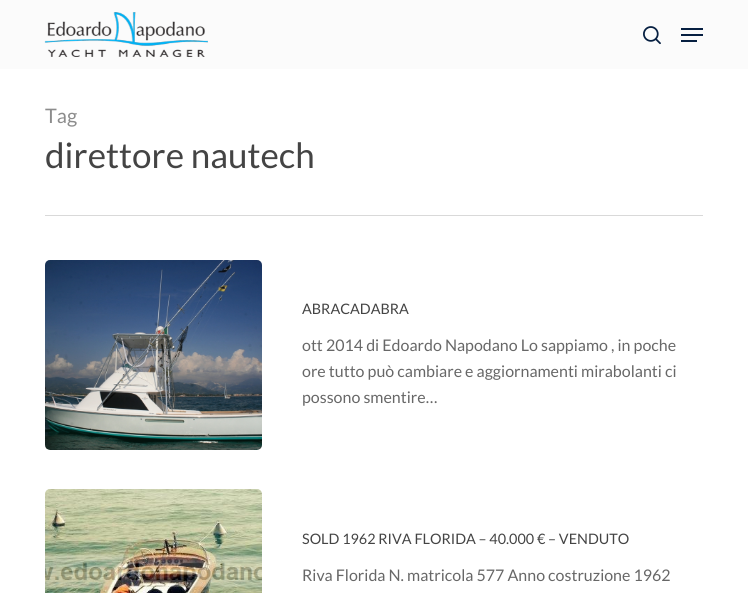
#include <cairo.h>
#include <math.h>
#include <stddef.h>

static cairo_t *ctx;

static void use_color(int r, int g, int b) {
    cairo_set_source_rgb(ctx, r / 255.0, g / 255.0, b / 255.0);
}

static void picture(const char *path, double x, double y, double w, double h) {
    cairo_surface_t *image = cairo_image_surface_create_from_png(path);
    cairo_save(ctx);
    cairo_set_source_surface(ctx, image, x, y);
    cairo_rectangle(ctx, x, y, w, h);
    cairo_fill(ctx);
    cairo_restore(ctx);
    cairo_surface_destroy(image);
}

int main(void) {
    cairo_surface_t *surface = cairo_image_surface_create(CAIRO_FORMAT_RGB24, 748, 593);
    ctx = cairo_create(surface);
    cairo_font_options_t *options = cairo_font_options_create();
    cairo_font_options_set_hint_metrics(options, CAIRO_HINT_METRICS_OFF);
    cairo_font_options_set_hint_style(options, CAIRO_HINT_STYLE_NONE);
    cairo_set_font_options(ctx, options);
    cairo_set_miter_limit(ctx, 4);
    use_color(255, 255, 255);
    cairo_paint(ctx);
    use_color(251, 251, 251);
    cairo_rectangle(ctx, 0, 0, 748, 69);
    cairo_fill(ctx);
    picture("img1.png", 44, 12, 164, 45);
    picture("img2.png", 643, 26, 18, 19);
    use_color(6, 31, 65);
    cairo_rectangle(ctx, 681, 28, 22, 2);
    cairo_fill(ctx);
    cairo_rectangle(ctx, 681, 40, 16, 2);
    cairo_fill(ctx);
    cairo_rectangle(ctx, 681, 34, 22, 2);
    cairo_fill(ctx);
    use_color(217, 217, 217);
    cairo_rectangle(ctx, 45, 215, 658, 1);
    cairo_fill(ctx);
    cairo_select_font_face(ctx, "Lato", CAIRO_FONT_SLANT_NORMAL, CAIRO_FONT_WEIGHT_NORMAL);
    cairo_set_font_size(ctx, 20);
    use_color(140, 140, 140);
    cairo_move_to(ctx, 45, 123);
    cairo_show_text(ctx, "Tag");
    cairo_set_font_size(ctx, 35);
    use_color(68, 68, 68);
    cairo_move_to(ctx, 45, 168);
    cairo_show_text(ctx, "direttore nautech");
    picture("img3.png", 45, 260, 217, 190);
    cairo_set_font_size(ctx, 14.4);
    cairo_move_to(ctx, 302, 314);
    cairo_show_text(ctx, "ABRACADABRA");
    cairo_set_font_size(ctx, 16);
    use_color(103, 103, 103);
    cairo_move_to(ctx, 302, 351);
    cairo_show_text(ctx, "ott 2014 di Edoardo Napodano Lo sappiamo , in poche");
    cairo_move_to(ctx, 302, 377);
    cairo_show_text(ctx, "ore tutto può cambiare e aggiornamenti mirabolanti ci");
    cairo_move_to(ctx, 302, 403);
    cairo_show_text(ctx, "possono smentire…");
    picture("img4.png", 45, 489, 217, 104);
    cairo_set_font_size(ctx, 14.4);
    use_color(68, 68, 68);
    cairo_move_to(ctx, 302, 544);
    cairo_show_text(ctx, "SOLD 1962 RIVA FLORIDA – 40.000 € – VENDUTO");
    cairo_set_font_size(ctx, 16);
    use_color(103, 103, 103);
    cairo_move_to(ctx, 302, 581);
    cairo_show_text(ctx, "Riva Florida N. matricola 577 Anno costruzione 1962");
    cairo_surface_write_to_png(surface, "result.png");
    cairo_font_options_destroy(options);
    cairo_destroy(ctx);
    cairo_surface_destroy(surface);
    return 0;
}
